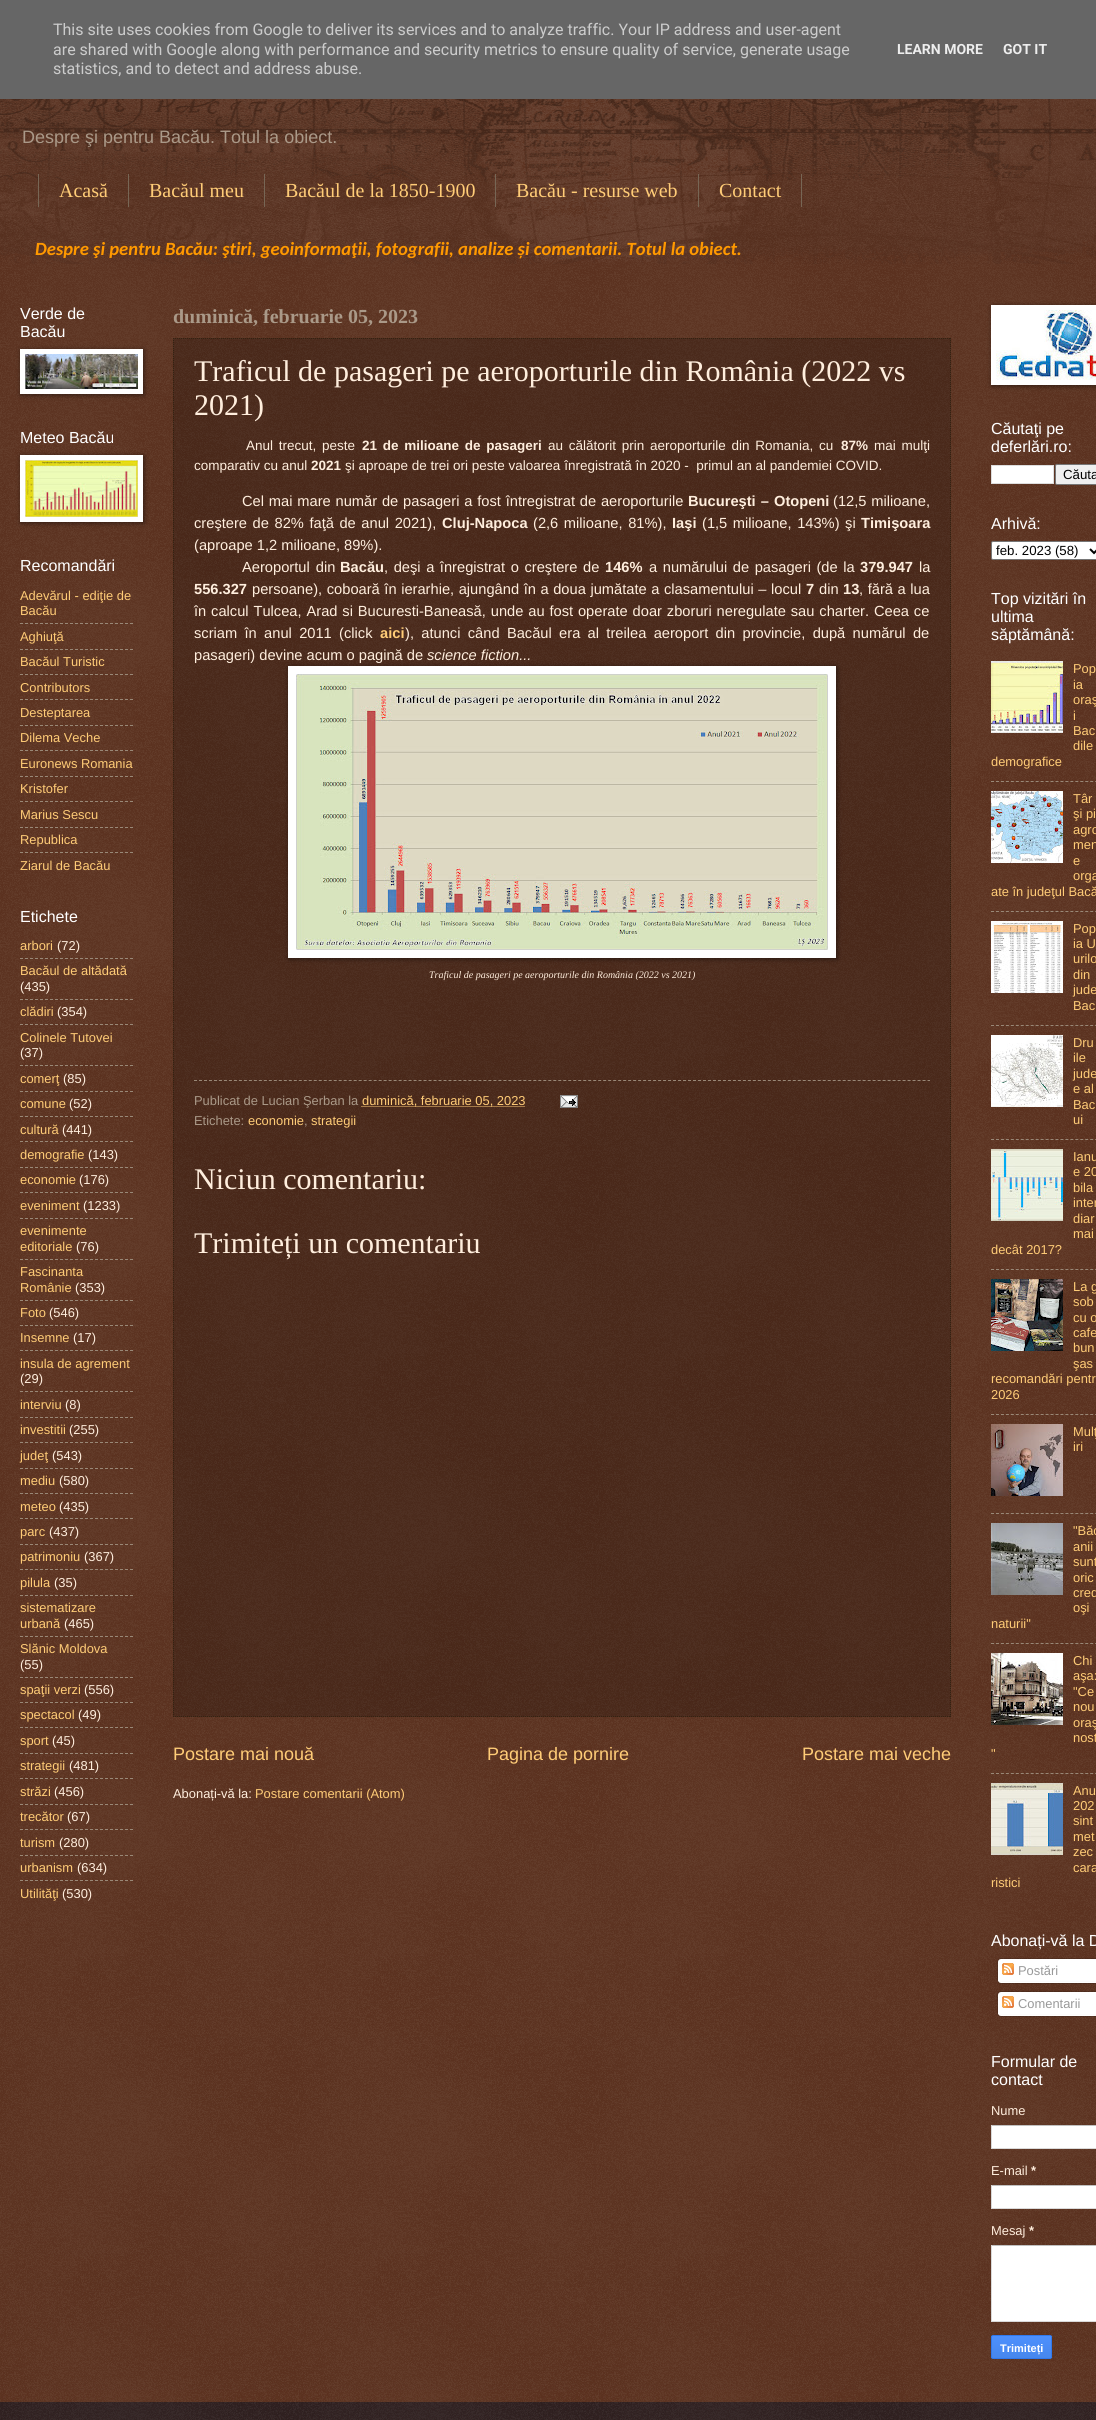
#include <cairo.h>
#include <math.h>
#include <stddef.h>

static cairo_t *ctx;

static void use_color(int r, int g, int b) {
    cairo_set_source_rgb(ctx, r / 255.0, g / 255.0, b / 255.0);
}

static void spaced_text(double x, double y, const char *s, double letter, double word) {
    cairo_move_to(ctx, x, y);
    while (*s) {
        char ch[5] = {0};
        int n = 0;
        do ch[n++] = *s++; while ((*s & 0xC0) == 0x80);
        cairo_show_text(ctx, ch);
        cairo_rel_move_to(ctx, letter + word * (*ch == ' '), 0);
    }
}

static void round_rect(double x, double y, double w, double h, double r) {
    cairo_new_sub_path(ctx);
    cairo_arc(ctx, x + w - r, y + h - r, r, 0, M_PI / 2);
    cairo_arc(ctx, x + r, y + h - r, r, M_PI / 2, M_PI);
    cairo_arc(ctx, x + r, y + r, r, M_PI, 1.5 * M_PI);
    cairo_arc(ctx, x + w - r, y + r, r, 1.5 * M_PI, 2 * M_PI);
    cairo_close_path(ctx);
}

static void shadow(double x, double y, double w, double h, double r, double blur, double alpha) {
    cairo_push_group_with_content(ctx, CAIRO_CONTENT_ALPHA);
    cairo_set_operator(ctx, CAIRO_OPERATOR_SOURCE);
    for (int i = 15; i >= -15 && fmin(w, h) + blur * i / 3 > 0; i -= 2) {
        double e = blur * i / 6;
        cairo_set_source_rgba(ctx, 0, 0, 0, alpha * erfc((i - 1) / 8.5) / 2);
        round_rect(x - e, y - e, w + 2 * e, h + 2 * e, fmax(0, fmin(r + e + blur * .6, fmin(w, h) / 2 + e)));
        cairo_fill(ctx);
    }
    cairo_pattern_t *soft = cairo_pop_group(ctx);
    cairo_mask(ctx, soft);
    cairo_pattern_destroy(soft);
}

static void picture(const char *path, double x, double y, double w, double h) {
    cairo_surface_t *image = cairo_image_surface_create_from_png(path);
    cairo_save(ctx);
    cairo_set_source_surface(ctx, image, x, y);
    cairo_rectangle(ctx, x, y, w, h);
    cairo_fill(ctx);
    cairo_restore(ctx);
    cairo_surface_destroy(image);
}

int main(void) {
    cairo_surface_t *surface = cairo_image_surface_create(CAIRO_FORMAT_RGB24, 1096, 2420);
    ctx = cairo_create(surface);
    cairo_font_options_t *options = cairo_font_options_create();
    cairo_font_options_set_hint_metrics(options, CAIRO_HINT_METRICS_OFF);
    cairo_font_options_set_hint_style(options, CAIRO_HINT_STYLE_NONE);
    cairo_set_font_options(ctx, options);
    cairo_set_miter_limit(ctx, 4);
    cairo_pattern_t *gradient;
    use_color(68, 21, 0);
    cairo_paint(ctx);
    picture("img1.png", 0, 99, 1096, 2303);
    use_color(102, 102, 102);
    cairo_rectangle(ctx, 0, 0, 1096, 99);
    cairo_fill(ctx);
    cairo_select_font_face(ctx, "Roboto", CAIRO_FONT_SLANT_NORMAL, CAIRO_FONT_WEIGHT_NORMAL);
    cairo_set_font_size(ctx, 16);
    use_color(204, 204, 204);
    cairo_move_to(ctx, 53, 35);
    cairo_show_text(ctx, "This site uses cookies from Google to deliver its services and to analyze traffic. Your IP address and user-agent");
    cairo_move_to(ctx, 53, 55);
    cairo_show_text(ctx, "are shared with Google along with performance and security metrics to ensure quality of service, generate usage");
    cairo_move_to(ctx, 53, 74);
    cairo_show_text(ctx, "statistics, and to detect and address abuse.");
    cairo_select_font_face(ctx, "Roboto", CAIRO_FONT_SLANT_NORMAL, CAIRO_FONT_WEIGHT_BOLD);
    cairo_set_font_size(ctx, 14);
    use_color(238, 238, 238);
    cairo_move_to(ctx, 897, 54);
    cairo_show_text(ctx, "LEARN MORE");
    cairo_move_to(ctx, 1003, 54);
    cairo_show_text(ctx, "GOT IT");
    picture("img2.png", 0, 99, 1096, 165);
    cairo_select_font_face(ctx, "Liberation Sans", CAIRO_FONT_SLANT_NORMAL, CAIRO_FONT_WEIGHT_NORMAL);
    cairo_set_font_size(ctx, 18);
    use_color(170, 153, 136);
    cairo_move_to(ctx, 22, 143);
    cairo_show_text(ctx, "Despre şi pentru Bacău. Totul la obiect.");
    use_color(119, 102, 85);
    cairo_rectangle(ctx, 128, 174, 1, 33);
    cairo_fill(ctx);
    cairo_rectangle(ctx, 38, 174, 1, 33);
    cairo_fill(ctx);
    cairo_select_font_face(ctx, "Liberation Serif", CAIRO_FONT_SLANT_NORMAL, CAIRO_FONT_WEIGHT_NORMAL);
    cairo_set_font_size(ctx, 20);
    use_color(255, 204, 119);
    cairo_move_to(ctx, 59, 197);
    cairo_show_text(ctx, "Acasă");
    use_color(119, 102, 85);
    cairo_rectangle(ctx, 264, 174, 1, 33);
    cairo_fill(ctx);
    use_color(255, 204, 119);
    cairo_move_to(ctx, 149, 197);
    cairo_show_text(ctx, "Bacăul meu");
    use_color(119, 102, 85);
    cairo_rectangle(ctx, 495, 174, 1, 33);
    cairo_fill(ctx);
    use_color(255, 204, 119);
    cairo_move_to(ctx, 285, 197);
    cairo_show_text(ctx, "Bacăul de la 1850-1900");
    use_color(119, 102, 85);
    cairo_rectangle(ctx, 698, 174, 1, 33);
    cairo_fill(ctx);
    use_color(255, 204, 119);
    cairo_move_to(ctx, 516, 197);
    cairo_show_text(ctx, "Bacău - resurse web");
    use_color(119, 102, 85);
    cairo_rectangle(ctx, 801, 174, 1, 33);
    cairo_fill(ctx);
    use_color(255, 204, 119);
    cairo_move_to(ctx, 719, 197);
    cairo_show_text(ctx, "Contact");
    cairo_select_font_face(ctx, "Carlito", CAIRO_FONT_SLANT_ITALIC, CAIRO_FONT_WEIGHT_BOLD);
    cairo_set_font_size(ctx, 18.65);
    use_color(255, 153, 0);
    cairo_move_to(ctx, 35, 255);
    cairo_show_text(ctx, "Despre şi pentru Bacău: ştiri, geoinformaţii, fotografii, analize și comentarii. Totul la obiect.");
    cairo_select_font_face(ctx, "Arimo", CAIRO_FONT_SLANT_NORMAL, CAIRO_FONT_WEIGHT_NORMAL);
    cairo_set_font_size(ctx, 16);
    use_color(255, 255, 255);
    cairo_move_to(ctx, 20, 319);
    cairo_show_text(ctx, "Verde de");
    cairo_move_to(ctx, 20, 337);
    cairo_show_text(ctx, "Bacău");
    use_color(0, 0, 0);
    shadow(21, 350, 123, 45, 0, 2.5, 0.5);
    use_color(255, 255, 255);
    cairo_rectangle(ctx, 20, 349, 123, 45);
    cairo_fill(ctx);
    picture("img3.png", 25, 354, 113, 35);
    cairo_move_to(ctx, 20, 443);
    cairo_show_text(ctx, "Meteo Bacău");
    use_color(0, 0, 0);
    shadow(21, 456, 123, 67, 0, 2.5, 0.5);
    use_color(255, 255, 255);
    cairo_rectangle(ctx, 20, 455, 123, 67);
    cairo_fill(ctx);
    picture("img4.png", 25, 460, 113, 57);
    cairo_move_to(ctx, 20, 571);
    cairo_show_text(ctx, "Recomandări");
    cairo_select_font_face(ctx, "Liberation Sans", CAIRO_FONT_SLANT_NORMAL, CAIRO_FONT_WEIGHT_NORMAL);
    cairo_set_font_size(ctx, 12.9);
    use_color(255, 204, 119);
    cairo_move_to(ctx, 20, 600);
    cairo_show_text(ctx, "Adevărul - ediţie de");
    cairo_move_to(ctx, 20, 615);
    cairo_show_text(ctx, "Bacău");
    cairo_new_path(ctx);
    cairo_move_to(ctx, 20, 623.5);
    cairo_line_to(ctx, 133, 623.5);
    use_color(153, 136, 119);
    cairo_set_line_width(ctx, 1);
    cairo_set_dash(ctx, (double[]){3, 2}, 2, 0);
    cairo_stroke(ctx);
    use_color(255, 204, 119);
    cairo_move_to(ctx, 20, 641);
    cairo_show_text(ctx, "Aghiuţă");
    cairo_new_path(ctx);
    cairo_move_to(ctx, 20, 649.5);
    cairo_line_to(ctx, 133, 649.5);
    use_color(153, 136, 119);
    cairo_stroke(ctx);
    use_color(255, 204, 119);
    cairo_move_to(ctx, 20, 666);
    cairo_show_text(ctx, "Bacăul Turistic");
    cairo_new_path(ctx);
    cairo_move_to(ctx, 20, 674.5);
    cairo_line_to(ctx, 133, 674.5);
    use_color(153, 136, 119);
    cairo_stroke(ctx);
    use_color(255, 204, 119);
    cairo_move_to(ctx, 20, 692);
    cairo_show_text(ctx, "Contributors");
    cairo_new_path(ctx);
    cairo_move_to(ctx, 20, 699.5);
    cairo_line_to(ctx, 133, 699.5);
    use_color(153, 136, 119);
    cairo_stroke(ctx);
    use_color(255, 204, 119);
    cairo_move_to(ctx, 20, 717);
    cairo_show_text(ctx, "Desteptarea");
    cairo_new_path(ctx);
    cairo_move_to(ctx, 20, 725.5);
    cairo_line_to(ctx, 133, 725.5);
    use_color(153, 136, 119);
    cairo_stroke(ctx);
    use_color(255, 204, 119);
    cairo_move_to(ctx, 20, 742);
    cairo_show_text(ctx, "Dilema Veche");
    cairo_new_path(ctx);
    cairo_move_to(ctx, 20, 750.5);
    cairo_line_to(ctx, 133, 750.5);
    use_color(153, 136, 119);
    cairo_stroke(ctx);
    use_color(255, 204, 119);
    cairo_move_to(ctx, 20, 768);
    cairo_show_text(ctx, "Euronews Romania");
    cairo_new_path(ctx);
    cairo_move_to(ctx, 20, 776.5);
    cairo_line_to(ctx, 133, 776.5);
    use_color(153, 136, 119);
    cairo_stroke(ctx);
    use_color(255, 204, 119);
    cairo_move_to(ctx, 20, 793);
    cairo_show_text(ctx, "Kristofer");
    cairo_new_path(ctx);
    cairo_move_to(ctx, 20, 801.5);
    cairo_line_to(ctx, 133, 801.5);
    use_color(153, 136, 119);
    cairo_stroke(ctx);
    use_color(255, 204, 119);
    cairo_move_to(ctx, 20, 819);
    cairo_show_text(ctx, "Marius Sescu");
    cairo_new_path(ctx);
    cairo_move_to(ctx, 20, 827.5);
    cairo_line_to(ctx, 133, 827.5);
    use_color(153, 136, 119);
    cairo_stroke(ctx);
    use_color(255, 204, 119);
    cairo_move_to(ctx, 20, 844);
    cairo_show_text(ctx, "Republica");
    cairo_new_path(ctx);
    cairo_move_to(ctx, 20, 852.5);
    cairo_line_to(ctx, 133, 852.5);
    use_color(153, 136, 119);
    cairo_stroke(ctx);
    use_color(255, 204, 119);
    cairo_move_to(ctx, 20, 870);
    cairo_show_text(ctx, "Ziarul de Bacău");
    cairo_select_font_face(ctx, "Arimo", CAIRO_FONT_SLANT_NORMAL, CAIRO_FONT_WEIGHT_NORMAL);
    cairo_set_font_size(ctx, 16);
    use_color(255, 255, 255);
    cairo_move_to(ctx, 20, 922);
    cairo_show_text(ctx, "Etichete");
    cairo_select_font_face(ctx, "Liberation Sans", CAIRO_FONT_SLANT_NORMAL, CAIRO_FONT_WEIGHT_NORMAL);
    cairo_set_font_size(ctx, 12.9);
    use_color(255, 204, 119);
    cairo_move_to(ctx, 20, 950);
    cairo_show_text(ctx, "arbori");
    use_color(255, 238, 221);
    cairo_move_to(ctx, 57, 950);
    cairo_show_text(ctx, "(72)");
    cairo_new_path(ctx);
    cairo_move_to(ctx, 20, 958.5);
    cairo_line_to(ctx, 133, 958.5);
    use_color(153, 136, 119);
    cairo_stroke(ctx);
    use_color(255, 204, 119);
    cairo_move_to(ctx, 20, 975);
    cairo_show_text(ctx, "Bacăul de altădată");
    use_color(255, 238, 221);
    cairo_move_to(ctx, 20, 991);
    cairo_show_text(ctx, "(435)");
    cairo_new_path(ctx);
    cairo_move_to(ctx, 20, 999.5);
    cairo_line_to(ctx, 133, 999.5);
    use_color(153, 136, 119);
    cairo_stroke(ctx);
    use_color(255, 204, 119);
    cairo_move_to(ctx, 20, 1016);
    cairo_show_text(ctx, "clădiri");
    use_color(255, 238, 221);
    cairo_move_to(ctx, 57, 1016);
    cairo_show_text(ctx, "(354)");
    cairo_new_path(ctx);
    cairo_move_to(ctx, 20, 1024.5);
    cairo_line_to(ctx, 133, 1024.5);
    use_color(153, 136, 119);
    cairo_stroke(ctx);
    use_color(255, 204, 119);
    cairo_move_to(ctx, 20, 1042);
    cairo_show_text(ctx, "Colinele Tutovei");
    use_color(255, 238, 221);
    cairo_move_to(ctx, 20, 1057);
    cairo_show_text(ctx, "(37)");
    cairo_new_path(ctx);
    cairo_move_to(ctx, 20, 1065.5);
    cairo_line_to(ctx, 133, 1065.5);
    use_color(153, 136, 119);
    cairo_stroke(ctx);
    use_color(255, 204, 119);
    cairo_move_to(ctx, 20, 1083);
    cairo_show_text(ctx, "comerţ");
    use_color(255, 238, 221);
    cairo_move_to(ctx, 63, 1083);
    cairo_show_text(ctx, "(85)");
    cairo_new_path(ctx);
    cairo_move_to(ctx, 20, 1091.5);
    cairo_line_to(ctx, 133, 1091.5);
    use_color(153, 136, 119);
    cairo_stroke(ctx);
    use_color(255, 204, 119);
    cairo_move_to(ctx, 20, 1108);
    cairo_show_text(ctx, "comune");
    use_color(255, 238, 221);
    cairo_move_to(ctx, 69, 1108);
    cairo_show_text(ctx, "(52)");
    cairo_new_path(ctx);
    cairo_move_to(ctx, 20, 1116.5);
    cairo_line_to(ctx, 133, 1116.5);
    use_color(153, 136, 119);
    cairo_stroke(ctx);
    use_color(255, 204, 119);
    cairo_move_to(ctx, 20, 1134);
    cairo_show_text(ctx, "cultură");
    use_color(255, 238, 221);
    cairo_move_to(ctx, 62, 1134);
    cairo_show_text(ctx, "(441)");
    cairo_new_path(ctx);
    cairo_move_to(ctx, 20, 1141.5);
    cairo_line_to(ctx, 133, 1141.5);
    use_color(153, 136, 119);
    cairo_stroke(ctx);
    use_color(255, 204, 119);
    cairo_move_to(ctx, 20, 1159);
    cairo_show_text(ctx, "demografie");
    use_color(255, 238, 221);
    cairo_move_to(ctx, 88, 1159);
    cairo_show_text(ctx, "(143)");
    cairo_new_path(ctx);
    cairo_move_to(ctx, 20, 1167.5);
    cairo_line_to(ctx, 133, 1167.5);
    use_color(153, 136, 119);
    cairo_stroke(ctx);
    use_color(255, 204, 119);
    cairo_move_to(ctx, 20, 1184);
    cairo_show_text(ctx, "economie");
    use_color(255, 238, 221);
    cairo_move_to(ctx, 79, 1184);
    cairo_show_text(ctx, "(176)");
    cairo_new_path(ctx);
    cairo_move_to(ctx, 20, 1192.5);
    cairo_line_to(ctx, 133, 1192.5);
    use_color(153, 136, 119);
    cairo_stroke(ctx);
    use_color(255, 204, 119);
    cairo_move_to(ctx, 20, 1210);
    cairo_show_text(ctx, "eveniment");
    use_color(255, 238, 221);
    cairo_move_to(ctx, 83, 1210);
    cairo_show_text(ctx, "(1233)");
    cairo_new_path(ctx);
    cairo_move_to(ctx, 20, 1218.5);
    cairo_line_to(ctx, 133, 1218.5);
    use_color(153, 136, 119);
    cairo_stroke(ctx);
    use_color(255, 204, 119);
    cairo_move_to(ctx, 20, 1235);
    cairo_show_text(ctx, "evenimente");
    cairo_move_to(ctx, 20, 1251);
    cairo_show_text(ctx, "editoriale");
    use_color(255, 238, 221);
    cairo_move_to(ctx, 76, 1251);
    cairo_show_text(ctx, "(76)");
    cairo_new_path(ctx);
    cairo_move_to(ctx, 20, 1259.5);
    cairo_line_to(ctx, 133, 1259.5);
    use_color(153, 136, 119);
    cairo_stroke(ctx);
    use_color(255, 204, 119);
    cairo_move_to(ctx, 20, 1276);
    cairo_show_text(ctx, "Fascinanta");
    cairo_move_to(ctx, 20, 1292);
    cairo_show_text(ctx, "Românie");
    use_color(255, 238, 221);
    cairo_move_to(ctx, 75, 1292);
    cairo_show_text(ctx, "(353)");
    cairo_new_path(ctx);
    cairo_move_to(ctx, 20, 1300.5);
    cairo_line_to(ctx, 133, 1300.5);
    use_color(153, 136, 119);
    cairo_stroke(ctx);
    use_color(255, 204, 119);
    cairo_move_to(ctx, 20, 1317);
    cairo_show_text(ctx, "Foto");
    use_color(255, 238, 221);
    cairo_move_to(ctx, 49, 1317);
    cairo_show_text(ctx, "(546)");
    cairo_new_path(ctx);
    cairo_move_to(ctx, 20, 1325.5);
    cairo_line_to(ctx, 133, 1325.5);
    use_color(153, 136, 119);
    cairo_stroke(ctx);
    use_color(255, 204, 119);
    cairo_move_to(ctx, 20, 1342);
    cairo_show_text(ctx, "Insemne");
    use_color(255, 238, 221);
    cairo_move_to(ctx, 73, 1342);
    cairo_show_text(ctx, "(17)");
    cairo_new_path(ctx);
    cairo_move_to(ctx, 20, 1350.5);
    cairo_line_to(ctx, 133, 1350.5);
    use_color(153, 136, 119);
    cairo_stroke(ctx);
    use_color(255, 204, 119);
    cairo_move_to(ctx, 20, 1368);
    cairo_show_text(ctx, "insula de agrement");
    use_color(255, 238, 221);
    cairo_move_to(ctx, 20, 1383);
    cairo_show_text(ctx, "(29)");
    cairo_new_path(ctx);
    cairo_move_to(ctx, 20, 1391.5);
    cairo_line_to(ctx, 133, 1391.5);
    use_color(153, 136, 119);
    cairo_stroke(ctx);
    use_color(255, 204, 119);
    cairo_move_to(ctx, 20, 1409);
    cairo_show_text(ctx, "interviu");
    use_color(255, 238, 221);
    cairo_move_to(ctx, 65, 1409);
    cairo_show_text(ctx, "(8)");
    cairo_new_path(ctx);
    cairo_move_to(ctx, 20, 1417.5);
    cairo_line_to(ctx, 133, 1417.5);
    use_color(153, 136, 119);
    cairo_stroke(ctx);
    use_color(255, 204, 119);
    cairo_move_to(ctx, 20, 1434);
    cairo_show_text(ctx, "investitii");
    use_color(255, 238, 221);
    cairo_move_to(ctx, 69, 1434);
    cairo_show_text(ctx, "(255)");
    cairo_new_path(ctx);
    cairo_move_to(ctx, 20, 1442.5);
    cairo_line_to(ctx, 133, 1442.5);
    use_color(153, 136, 119);
    cairo_stroke(ctx);
    use_color(255, 204, 119);
    cairo_move_to(ctx, 20, 1460);
    cairo_show_text(ctx, "judeţ");
    use_color(255, 238, 221);
    cairo_move_to(ctx, 52, 1460);
    cairo_show_text(ctx, "(543)");
    cairo_new_path(ctx);
    cairo_move_to(ctx, 20, 1468.5);
    cairo_line_to(ctx, 133, 1468.5);
    use_color(153, 136, 119);
    cairo_stroke(ctx);
    use_color(255, 204, 119);
    cairo_move_to(ctx, 20, 1485);
    cairo_show_text(ctx, "mediu");
    use_color(255, 238, 221);
    cairo_move_to(ctx, 59, 1485);
    cairo_show_text(ctx, "(580)");
    cairo_new_path(ctx);
    cairo_move_to(ctx, 20, 1493.5);
    cairo_line_to(ctx, 133, 1493.5);
    use_color(153, 136, 119);
    cairo_stroke(ctx);
    use_color(255, 204, 119);
    cairo_move_to(ctx, 20, 1511);
    cairo_show_text(ctx, "meteo");
    use_color(255, 238, 221);
    cairo_move_to(ctx, 59, 1511);
    cairo_show_text(ctx, "(435)");
    cairo_new_path(ctx);
    cairo_move_to(ctx, 20, 1518.5);
    cairo_line_to(ctx, 133, 1518.5);
    use_color(153, 136, 119);
    cairo_stroke(ctx);
    use_color(255, 204, 119);
    cairo_move_to(ctx, 20, 1536);
    cairo_show_text(ctx, "parc");
    use_color(255, 238, 221);
    cairo_move_to(ctx, 49, 1536);
    cairo_show_text(ctx, "(437)");
    cairo_new_path(ctx);
    cairo_move_to(ctx, 20, 1544.5);
    cairo_line_to(ctx, 133, 1544.5);
    use_color(153, 136, 119);
    cairo_stroke(ctx);
    use_color(255, 204, 119);
    cairo_move_to(ctx, 20, 1561);
    cairo_show_text(ctx, "patrimoniu");
    use_color(255, 238, 221);
    cairo_move_to(ctx, 84, 1561);
    cairo_show_text(ctx, "(367)");
    cairo_new_path(ctx);
    cairo_move_to(ctx, 20, 1569.5);
    cairo_line_to(ctx, 133, 1569.5);
    use_color(153, 136, 119);
    cairo_stroke(ctx);
    use_color(255, 204, 119);
    cairo_move_to(ctx, 20, 1587);
    cairo_show_text(ctx, "pilula");
    use_color(255, 238, 221);
    cairo_move_to(ctx, 54, 1587);
    cairo_show_text(ctx, "(35)");
    cairo_new_path(ctx);
    cairo_move_to(ctx, 20, 1595.5);
    cairo_line_to(ctx, 133, 1595.5);
    use_color(153, 136, 119);
    cairo_stroke(ctx);
    use_color(255, 204, 119);
    cairo_move_to(ctx, 20, 1612);
    cairo_show_text(ctx, "sistematizare");
    cairo_move_to(ctx, 20, 1628);
    cairo_show_text(ctx, "urbană");
    use_color(255, 238, 221);
    cairo_move_to(ctx, 64, 1628);
    cairo_show_text(ctx, "(465)");
    cairo_new_path(ctx);
    cairo_move_to(ctx, 20, 1636.5);
    cairo_line_to(ctx, 133, 1636.5);
    use_color(153, 136, 119);
    cairo_stroke(ctx);
    use_color(255, 204, 119);
    cairo_move_to(ctx, 20, 1653);
    cairo_show_text(ctx, "Slănic Moldova");
    use_color(255, 238, 221);
    cairo_move_to(ctx, 20, 1669);
    cairo_show_text(ctx, "(55)");
    cairo_new_path(ctx);
    cairo_move_to(ctx, 20, 1677.5);
    cairo_line_to(ctx, 133, 1677.5);
    use_color(153, 136, 119);
    cairo_stroke(ctx);
    use_color(255, 204, 119);
    cairo_move_to(ctx, 20, 1694);
    cairo_show_text(ctx, "spaţii verzi");
    use_color(255, 238, 221);
    cairo_move_to(ctx, 84, 1694);
    cairo_show_text(ctx, "(556)");
    cairo_new_path(ctx);
    cairo_move_to(ctx, 20, 1702.5);
    cairo_line_to(ctx, 133, 1702.5);
    use_color(153, 136, 119);
    cairo_stroke(ctx);
    use_color(255, 204, 119);
    cairo_move_to(ctx, 20, 1719);
    cairo_show_text(ctx, "spectacol");
    use_color(255, 238, 221);
    cairo_move_to(ctx, 78, 1719);
    cairo_show_text(ctx, "(49)");
    cairo_new_path(ctx);
    cairo_move_to(ctx, 20, 1727.5);
    cairo_line_to(ctx, 133, 1727.5);
    use_color(153, 136, 119);
    cairo_stroke(ctx);
    use_color(255, 204, 119);
    cairo_move_to(ctx, 20, 1745);
    cairo_show_text(ctx, "sport");
    use_color(255, 238, 221);
    cairo_move_to(ctx, 52, 1745);
    cairo_show_text(ctx, "(45)");
    cairo_new_path(ctx);
    cairo_move_to(ctx, 20, 1753.5);
    cairo_line_to(ctx, 133, 1753.5);
    use_color(153, 136, 119);
    cairo_stroke(ctx);
    use_color(255, 204, 119);
    cairo_move_to(ctx, 20, 1770);
    cairo_show_text(ctx, "strategii");
    use_color(255, 238, 221);
    cairo_move_to(ctx, 69, 1770);
    cairo_show_text(ctx, "(481)");
    cairo_new_path(ctx);
    cairo_move_to(ctx, 20, 1778.5);
    cairo_line_to(ctx, 133, 1778.5);
    use_color(153, 136, 119);
    cairo_stroke(ctx);
    use_color(255, 204, 119);
    cairo_move_to(ctx, 20, 1796);
    cairo_show_text(ctx, "străzi");
    use_color(255, 238, 221);
    cairo_move_to(ctx, 54, 1796);
    cairo_show_text(ctx, "(456)");
    cairo_new_path(ctx);
    cairo_move_to(ctx, 20, 1804.5);
    cairo_line_to(ctx, 133, 1804.5);
    use_color(153, 136, 119);
    cairo_stroke(ctx);
    use_color(255, 204, 119);
    cairo_move_to(ctx, 20, 1821);
    cairo_show_text(ctx, "trecător");
    use_color(255, 238, 221);
    cairo_move_to(ctx, 67, 1821);
    cairo_show_text(ctx, "(67)");
    cairo_new_path(ctx);
    cairo_move_to(ctx, 20, 1829.5);
    cairo_line_to(ctx, 133, 1829.5);
    use_color(153, 136, 119);
    cairo_stroke(ctx);
    use_color(255, 204, 119);
    cairo_move_to(ctx, 20, 1847);
    cairo_show_text(ctx, "turism");
    use_color(255, 238, 221);
    cairo_move_to(ctx, 59, 1847);
    cairo_show_text(ctx, "(280)");
    cairo_new_path(ctx);
    cairo_move_to(ctx, 20, 1855.5);
    cairo_line_to(ctx, 133, 1855.5);
    use_color(153, 136, 119);
    cairo_stroke(ctx);
    use_color(255, 204, 119);
    cairo_move_to(ctx, 20, 1872);
    cairo_show_text(ctx, "urbanism");
    use_color(255, 238, 221);
    cairo_move_to(ctx, 77, 1872);
    cairo_show_text(ctx, "(634)");
    cairo_new_path(ctx);
    cairo_move_to(ctx, 20, 1880.5);
    cairo_line_to(ctx, 133, 1880.5);
    use_color(153, 136, 119);
    cairo_stroke(ctx);
    use_color(255, 204, 119);
    cairo_move_to(ctx, 20, 1898);
    cairo_show_text(ctx, "Utilităţi");
    use_color(255, 238, 221);
    cairo_move_to(ctx, 62, 1898);
    cairo_show_text(ctx, "(530)");
    cairo_select_font_face(ctx, "Liberation Serif", CAIRO_FONT_SLANT_NORMAL, CAIRO_FONT_WEIGHT_BOLD);
    cairo_set_font_size(ctx, 20);
    use_color(170, 153, 136);
    cairo_move_to(ctx, 173, 323);
    cairo_show_text(ctx, "duminică, februarie 05, 2023");
    cairo_set_source_rgba(ctx, 0, 0, 0, 0.2);
    cairo_rectangle(ctx, 173, 338, 778, 1379);
    cairo_fill(ctx);
    cairo_new_path(ctx);
    cairo_move_to(ctx, 173, 338.5);
    cairo_line_to(ctx, 951, 338.5);
    use_color(51, 34, 17);
    cairo_set_dash(ctx, (double[]){1, 1}, 2, 0);
    cairo_stroke(ctx);
    cairo_new_path(ctx);
    cairo_move_to(ctx, 950.5, 338);
    cairo_line_to(ctx, 950.5, 1717);
    cairo_stroke(ctx);
    cairo_new_path(ctx);
    cairo_move_to(ctx, 173, 1716.5);
    cairo_line_to(ctx, 951, 1716.5);
    cairo_stroke(ctx);
    cairo_new_path(ctx);
    cairo_move_to(ctx, 173.5, 338);
    cairo_line_to(ctx, 173.5, 1717);
    cairo_stroke(ctx);
    cairo_select_font_face(ctx, "Liberation Serif", CAIRO_FONT_SLANT_NORMAL, CAIRO_FONT_WEIGHT_NORMAL);
    cairo_set_font_size(ctx, 30);
    use_color(255, 238, 221);
    cairo_move_to(ctx, 194, 381);
    cairo_show_text(ctx, "Traficul de pasageri pe aeroporturile din România (2022 vs");
    cairo_move_to(ctx, 194, 415);
    cairo_show_text(ctx, "2021)");
    cairo_select_font_face(ctx, "Liberation Sans", CAIRO_FONT_SLANT_NORMAL, CAIRO_FONT_WEIGHT_NORMAL);
    cairo_set_font_size(ctx, 13.5);
    spaced_text(246, 450, "Anul trecut, peste", 0, 2);
    cairo_select_font_face(ctx, "Liberation Sans", CAIRO_FONT_SLANT_NORMAL, CAIRO_FONT_WEIGHT_BOLD);
    spaced_text(362, 450, "21 de milioane de pasageri", 0, 2);
    cairo_select_font_face(ctx, "Liberation Sans", CAIRO_FONT_SLANT_NORMAL, CAIRO_FONT_WEIGHT_NORMAL);
    spaced_text(548, 450, "au călătorit prin aeroporturile din Romania, cu", 0, 2);
    cairo_select_font_face(ctx, "Liberation Sans", CAIRO_FONT_SLANT_NORMAL, CAIRO_FONT_WEIGHT_BOLD);
    cairo_move_to(ctx, 841, 450);
    cairo_show_text(ctx, "87%");
    cairo_select_font_face(ctx, "Liberation Sans", CAIRO_FONT_SLANT_NORMAL, CAIRO_FONT_WEIGHT_NORMAL);
    spaced_text(874, 450, "mai mulţi", 0, 2);
    cairo_move_to(ctx, 194, 470);
    cairo_show_text(ctx, "comparativ cu anul");
    cairo_select_font_face(ctx, "Liberation Sans", CAIRO_FONT_SLANT_NORMAL, CAIRO_FONT_WEIGHT_BOLD);
    cairo_move_to(ctx, 311, 470);
    cairo_show_text(ctx, "2021");
    cairo_select_font_face(ctx, "Liberation Sans", CAIRO_FONT_SLANT_NORMAL, CAIRO_FONT_WEIGHT_NORMAL);
    cairo_move_to(ctx, 345, 470);
    cairo_show_text(ctx, "şi aproape de trei ori peste valoarea înregistrată în 2020 -  primul an al pandemiei COVID.");
    cairo_set_font_size(ctx, 14.67);
    spaced_text(242, 506, "Cel mai mare număr de pasageri a fost întregistrat de aeroporturile", 0, 0.75);
    cairo_select_font_face(ctx, "Liberation Sans", CAIRO_FONT_SLANT_NORMAL, CAIRO_FONT_WEIGHT_BOLD);
    spaced_text(688, 506, "Bucureşti – Otopeni", 0, 1);
    cairo_select_font_face(ctx, "Liberation Sans", CAIRO_FONT_SLANT_NORMAL, CAIRO_FONT_WEIGHT_NORMAL);
    spaced_text(833, 506, "(12,5 milioane,", 0, 0.75);
    spaced_text(194, 528, "creştere de 82% faţă de anul 2021),", 0, 1.5);
    cairo_select_font_face(ctx, "Liberation Sans", CAIRO_FONT_SLANT_NORMAL, CAIRO_FONT_WEIGHT_BOLD);
    cairo_move_to(ctx, 442, 528);
    cairo_show_text(ctx, "Cluj-Napoca");
    cairo_select_font_face(ctx, "Liberation Sans", CAIRO_FONT_SLANT_NORMAL, CAIRO_FONT_WEIGHT_NORMAL);
    spaced_text(533, 528, "(2,6 milioane, 81%),", 0, 1.5);
    cairo_select_font_face(ctx, "Liberation Sans", CAIRO_FONT_SLANT_NORMAL, CAIRO_FONT_WEIGHT_BOLD);
    cairo_move_to(ctx, 672, 528);
    cairo_show_text(ctx, "Iaşi");
    cairo_select_font_face(ctx, "Liberation Sans", CAIRO_FONT_SLANT_NORMAL, CAIRO_FONT_WEIGHT_NORMAL);
    spaced_text(702, 528, "(1,5 milioane, 143%) şi", 0, 1.5);
    cairo_select_font_face(ctx, "Liberation Sans", CAIRO_FONT_SLANT_NORMAL, CAIRO_FONT_WEIGHT_BOLD);
    cairo_move_to(ctx, 861, 528);
    cairo_show_text(ctx, "Timişoara");
    cairo_select_font_face(ctx, "Liberation Sans", CAIRO_FONT_SLANT_NORMAL, CAIRO_FONT_WEIGHT_NORMAL);
    cairo_move_to(ctx, 194, 550);
    cairo_show_text(ctx, "(aproape 1,2 milioane, 89%).");
    spaced_text(242, 572, "Aeroportul din", 0, 2);
    cairo_select_font_face(ctx, "Liberation Sans", CAIRO_FONT_SLANT_NORMAL, CAIRO_FONT_WEIGHT_BOLD);
    cairo_move_to(ctx, 340, 572);
    cairo_show_text(ctx, "Bacău");
    cairo_select_font_face(ctx, "Liberation Sans", CAIRO_FONT_SLANT_NORMAL, CAIRO_FONT_WEIGHT_NORMAL);
    spaced_text(384, 572, ", deşi a înregistrat o creştere de", 0, 1.5);
    cairo_select_font_face(ctx, "Liberation Sans", CAIRO_FONT_SLANT_NORMAL, CAIRO_FONT_WEIGHT_BOLD);
    cairo_move_to(ctx, 605, 572);
    cairo_show_text(ctx, "146%");
    cairo_select_font_face(ctx, "Liberation Sans", CAIRO_FONT_SLANT_NORMAL, CAIRO_FONT_WEIGHT_NORMAL);
    spaced_text(649, 572, "a numărului de pasageri (de la", 0, 1.5);
    cairo_select_font_face(ctx, "Liberation Sans", CAIRO_FONT_SLANT_NORMAL, CAIRO_FONT_WEIGHT_BOLD);
    cairo_move_to(ctx, 860, 572);
    cairo_show_text(ctx, "379.947");
    cairo_select_font_face(ctx, "Liberation Sans", CAIRO_FONT_SLANT_NORMAL, CAIRO_FONT_WEIGHT_NORMAL);
    cairo_move_to(ctx, 919, 572);
    cairo_show_text(ctx, "la");
    cairo_select_font_face(ctx, "Liberation Sans", CAIRO_FONT_SLANT_NORMAL, CAIRO_FONT_WEIGHT_BOLD);
    cairo_move_to(ctx, 194, 594);
    cairo_show_text(ctx, "556.327");
    cairo_select_font_face(ctx, "Liberation Sans", CAIRO_FONT_SLANT_NORMAL, CAIRO_FONT_WEIGHT_NORMAL);
    spaced_text(252, 594, "persoane), coboară în ierarhie, ajungând în a doua jumătate a clasamentului – locul", 0, 0.5);
    cairo_select_font_face(ctx, "Liberation Sans", CAIRO_FONT_SLANT_NORMAL, CAIRO_FONT_WEIGHT_BOLD);
    cairo_move_to(ctx, 806, 594);
    cairo_show_text(ctx, "7");
    cairo_select_font_face(ctx, "Liberation Sans", CAIRO_FONT_SLANT_NORMAL, CAIRO_FONT_WEIGHT_NORMAL);
    cairo_move_to(ctx, 819, 594);
    cairo_show_text(ctx, "din");
    cairo_select_font_face(ctx, "Liberation Sans", CAIRO_FONT_SLANT_NORMAL, CAIRO_FONT_WEIGHT_BOLD);
    cairo_move_to(ctx, 843, 594);
    cairo_show_text(ctx, "13");
    cairo_select_font_face(ctx, "Liberation Sans", CAIRO_FONT_SLANT_NORMAL, CAIRO_FONT_WEIGHT_NORMAL);
    spaced_text(859, 594, ", fără a lua", 0, 0.5);
    spaced_text(194, 616, "în calcul Tulcea, Arad si Bucuresti-Baneasă, unde au fost operate doar zboruri neregulate sau charter. Ceea ce", 0, 0.8);
    spaced_text(194, 638, "scriam în anul 2011 (click", 0, 3.25);
    cairo_select_font_face(ctx, "Liberation Sans", CAIRO_FONT_SLANT_NORMAL, CAIRO_FONT_WEIGHT_BOLD);
    use_color(255, 204, 119);
    cairo_move_to(ctx, 380, 638);
    cairo_show_text(ctx, "aici");
    cairo_select_font_face(ctx, "Liberation Sans", CAIRO_FONT_SLANT_NORMAL, CAIRO_FONT_WEIGHT_NORMAL);
    use_color(255, 238, 221);
    spaced_text(405, 638, "), atunci când Bacăul era al treilea aeroport din provincie, după numărul de", 0, 3.25);
    cairo_move_to(ctx, 194, 660);
    cairo_show_text(ctx, "pasageri) devine acum o pagină de");
    cairo_select_font_face(ctx, "Liberation Sans", CAIRO_FONT_SLANT_ITALIC, CAIRO_FONT_WEIGHT_NORMAL);
    cairo_move_to(ctx, 427, 660);
    cairo_show_text(ctx, "science fiction...");
    use_color(0, 0, 0);
    shadow(289, 667, 548, 292, 0, 2.5, 0.5);
    use_color(255, 255, 255);
    cairo_rectangle(ctx, 288, 666, 548, 292);
    cairo_fill(ctx);
    picture("img5.png", 296, 674, 532, 276);
    cairo_select_font_face(ctx, "Liberation Serif", CAIRO_FONT_SLANT_ITALIC, CAIRO_FONT_WEIGHT_NORMAL);
    cairo_set_font_size(ctx, 10);
    use_color(255, 238, 221);
    cairo_move_to(ctx, 429, 978);
    cairo_show_text(ctx, "Traficul de pasageri pe aeroporturile din România (2022 vs 2021)");
    cairo_new_path(ctx);
    cairo_move_to(ctx, 194, 1080.5);
    cairo_line_to(ctx, 930, 1080.5);
    use_color(153, 136, 119);
    cairo_set_dash(ctx, (double[]){3, 1.99}, 2, 0);
    cairo_stroke(ctx);
    cairo_select_font_face(ctx, "Liberation Sans", CAIRO_FONT_SLANT_NORMAL, CAIRO_FONT_WEIGHT_NORMAL);
    cairo_set_font_size(ctx, 12.9);
    use_color(170, 153, 136);
    cairo_move_to(ctx, 194, 1105);
    cairo_show_text(ctx, "Publicat de Lucian Şerban la");
    cairo_new_path(ctx);
    cairo_move_to(ctx, 361.5, 1106.5);
    cairo_line_to(ctx, 524.5, 1106.5);
    use_color(255, 204, 119);
    cairo_set_dash(ctx, (double[]){1, 1}, 2, 0);
    cairo_stroke(ctx);
    cairo_move_to(ctx, 362, 1105);
    cairo_show_text(ctx, "duminică, februarie 05, 2023");
    picture("img6.png", 560, 1095, 18, 13);
    use_color(170, 153, 136);
    cairo_move_to(ctx, 194, 1125);
    cairo_show_text(ctx, "Etichete:");
    use_color(255, 204, 119);
    cairo_move_to(ctx, 248, 1125);
    cairo_show_text(ctx, "economie");
    use_color(170, 153, 136);
    cairo_move_to(ctx, 304, 1125);
    cairo_show_text(ctx, ",");
    use_color(255, 204, 119);
    cairo_move_to(ctx, 311, 1125);
    cairo_show_text(ctx, "strategii");
    cairo_select_font_face(ctx, "Liberation Serif", CAIRO_FONT_SLANT_NORMAL, CAIRO_FONT_WEIGHT_NORMAL);
    cairo_set_font_size(ctx, 30);
    use_color(255, 238, 221);
    cairo_move_to(ctx, 194, 1189);
    cairo_show_text(ctx, "Niciun comentariu:");
    cairo_move_to(ctx, 194, 1253);
    cairo_show_text(ctx, "Trimiteți un comentariu");
    cairo_select_font_face(ctx, "Liberation Sans", CAIRO_FONT_SLANT_NORMAL, CAIRO_FONT_WEIGHT_NORMAL);
    cairo_set_font_size(ctx, 18);
    use_color(255, 204, 119);
    cairo_move_to(ctx, 173, 1760);
    cairo_show_text(ctx, "Postare mai nouă");
    cairo_move_to(ctx, 487, 1760);
    cairo_show_text(ctx, "Pagina de pornire");
    cairo_move_to(ctx, 802, 1760);
    cairo_show_text(ctx, "Postare mai veche");
    cairo_set_font_size(ctx, 12.9);
    use_color(255, 238, 221);
    cairo_move_to(ctx, 173, 1798);
    cairo_show_text(ctx, "Abonați-vă la:");
    use_color(255, 204, 119);
    cairo_move_to(ctx, 255, 1798);
    cairo_show_text(ctx, "Postare comentarii (Atom)");
    use_color(0, 0, 0);
    shadow(992, 306, 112, 80, 0, 2.5, 0.5);
    use_color(255, 255, 255);
    cairo_rectangle(ctx, 991, 305, 105, 80);
    cairo_fill(ctx);
    picture("img7.png", 996, 310, 100, 70);
    cairo_select_font_face(ctx, "Arimo", CAIRO_FONT_SLANT_NORMAL, CAIRO_FONT_WEIGHT_NORMAL);
    cairo_set_font_size(ctx, 16);
    cairo_move_to(ctx, 991, 434);
    cairo_show_text(ctx, "Căutaţi pe");
    cairo_move_to(ctx, 991, 452);
    cairo_show_text(ctx, "deferlări.ro:");
    cairo_rectangle(ctx, 991.5, 465.5, 62, 18);
    cairo_fill_preserve(ctx);
    use_color(221, 221, 221);
    cairo_set_dash(ctx, NULL, 0, 0);
    cairo_stroke(ctx);
    use_color(239, 239, 239);
    round_rect(1055.5, 464.5, 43, 20, 1.5);
    cairo_fill_preserve(ctx);
    use_color(118, 118, 118);
    cairo_stroke(ctx);
    cairo_select_font_face(ctx, "Liberation Sans", CAIRO_FONT_SLANT_NORMAL, CAIRO_FONT_WEIGHT_NORMAL);
    cairo_set_font_size(ctx, 13.25);
    use_color(0, 0, 0);
    cairo_move_to(ctx, 1063, 479);
    cairo_show_text(ctx, "Căuta");
    cairo_select_font_face(ctx, "Arimo", CAIRO_FONT_SLANT_NORMAL, CAIRO_FONT_WEIGHT_NORMAL);
    cairo_set_font_size(ctx, 16);
    use_color(255, 255, 255);
    cairo_move_to(ctx, 991, 529);
    cairo_show_text(ctx, "Arhivă:");
    round_rect(991.5, 541.5, 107, 18, 1.5);
    cairo_fill_preserve(ctx);
    use_color(118, 118, 118);
    cairo_stroke(ctx);
    cairo_new_path(ctx);
    cairo_move_to(ctx, 1090, 549);
    cairo_line_to(ctx, 1094, 553);
    cairo_line_to(ctx, 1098, 549);
    use_color(0, 0, 0);
    cairo_set_line_width(ctx, 2);
    cairo_stroke(ctx);
    cairo_select_font_face(ctx, "Liberation Sans", CAIRO_FONT_SLANT_NORMAL, CAIRO_FONT_WEIGHT_NORMAL);
    cairo_set_font_size(ctx, 13.25);
    cairo_move_to(ctx, 996, 555);
    cairo_show_text(ctx, "feb. 2023 (58)");
    cairo_select_font_face(ctx, "Arimo", CAIRO_FONT_SLANT_NORMAL, CAIRO_FONT_WEIGHT_NORMAL);
    cairo_set_font_size(ctx, 16);
    use_color(255, 255, 255);
    cairo_move_to(ctx, 991, 604);
    cairo_show_text(ctx, "Top vizitări în");
    cairo_move_to(ctx, 991, 622);
    cairo_show_text(ctx, "ultima");
    cairo_move_to(ctx, 991, 640);
    cairo_show_text(ctx, "săptămână:");
    picture("img8.png", 991, 661, 72, 72);
    cairo_select_font_face(ctx, "Liberation Sans", CAIRO_FONT_SLANT_NORMAL, CAIRO_FONT_WEIGHT_NORMAL);
    cairo_set_font_size(ctx, 12.9);
    use_color(255, 204, 119);
    cairo_move_to(ctx, 1073, 673);
    cairo_show_text(ctx, "Pop");
    cairo_move_to(ctx, 1073, 689);
    cairo_show_text(ctx, "ia");
    cairo_move_to(ctx, 1073, 704);
    cairo_show_text(ctx, "oraş");
    cairo_move_to(ctx, 1073, 720);
    cairo_show_text(ctx, "i");
    cairo_move_to(ctx, 1073, 735);
    cairo_show_text(ctx, "Bac");
    cairo_move_to(ctx, 1073, 750);
    cairo_show_text(ctx, "dile");
    cairo_move_to(ctx, 991, 766);
    cairo_show_text(ctx, "demografice");
    cairo_new_path(ctx);
    cairo_move_to(ctx, 991, 781.5);
    cairo_line_to(ctx, 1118, 781.5);
    use_color(153, 136, 119);
    cairo_set_line_width(ctx, 1);
    cairo_set_dash(ctx, (double[]){3, 1.96}, 2, 0);
    cairo_stroke(ctx);
    picture("img9.png", 991, 791, 72, 72);
    use_color(255, 204, 119);
    cairo_move_to(ctx, 1073, 803);
    cairo_show_text(ctx, "Târ");
    cairo_move_to(ctx, 1073, 818);
    cairo_show_text(ctx, "şi pi");
    cairo_move_to(ctx, 1073, 834);
    cairo_show_text(ctx, "agro");
    cairo_move_to(ctx, 1073, 849);
    cairo_show_text(ctx, "men");
    cairo_move_to(ctx, 1073, 865);
    cairo_show_text(ctx, "e");
    cairo_move_to(ctx, 1073, 880);
    cairo_show_text(ctx, "orga");
    cairo_move_to(ctx, 991, 896);
    cairo_show_text(ctx, "ate în judeţul Bacă");
    cairo_new_path(ctx);
    cairo_move_to(ctx, 991, 911.5);
    cairo_line_to(ctx, 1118, 911.5);
    use_color(153, 136, 119);
    cairo_stroke(ctx);
    picture("img10.png", 991, 921, 72, 72);
    use_color(255, 204, 119);
    cairo_move_to(ctx, 1073, 933);
    cairo_show_text(ctx, "Pop");
    cairo_move_to(ctx, 1073, 948);
    cairo_show_text(ctx, "ia U");
    cairo_move_to(ctx, 1073, 963);
    cairo_show_text(ctx, "urilo");
    cairo_move_to(ctx, 1073, 979);
    cairo_show_text(ctx, "din");
    cairo_move_to(ctx, 1073, 994);
    cairo_show_text(ctx, "jude");
    cairo_move_to(ctx, 1073, 1010);
    cairo_show_text(ctx, "Bac");
    cairo_new_path(ctx);
    cairo_move_to(ctx, 991, 1025.5);
    cairo_line_to(ctx, 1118, 1025.5);
    use_color(153, 136, 119);
    cairo_stroke(ctx);
    picture("img11.png", 991, 1035, 72, 72);
    use_color(255, 204, 119);
    cairo_move_to(ctx, 1073, 1047);
    cairo_show_text(ctx, "Dru");
    cairo_move_to(ctx, 1073, 1062);
    cairo_show_text(ctx, "ile");
    cairo_move_to(ctx, 1073, 1078);
    cairo_show_text(ctx, "jude");
    cairo_move_to(ctx, 1073, 1093);
    cairo_show_text(ctx, "e al");
    cairo_move_to(ctx, 1073, 1109);
    cairo_show_text(ctx, "Bac");
    cairo_move_to(ctx, 1073, 1124);
    cairo_show_text(ctx, "ui");
    cairo_new_path(ctx);
    cairo_move_to(ctx, 991, 1139.5);
    cairo_line_to(ctx, 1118, 1139.5);
    use_color(153, 136, 119);
    cairo_stroke(ctx);
    picture("img12.png", 991, 1149, 72, 72);
    use_color(255, 204, 119);
    cairo_move_to(ctx, 1073, 1161);
    cairo_show_text(ctx, "Ianu");
    cairo_move_to(ctx, 1073, 1176);
    cairo_show_text(ctx, "e 20");
    cairo_move_to(ctx, 1073, 1192);
    cairo_show_text(ctx, "bila");
    cairo_move_to(ctx, 1073, 1207);
    cairo_show_text(ctx, "inter");
    cairo_move_to(ctx, 1073, 1223);
    cairo_show_text(ctx, "diar");
    cairo_move_to(ctx, 1073, 1238);
    cairo_show_text(ctx, "mai");
    cairo_move_to(ctx, 991, 1254);
    cairo_show_text(ctx, "decât 2017?");
    cairo_new_path(ctx);
    cairo_move_to(ctx, 991, 1269.5);
    cairo_line_to(ctx, 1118, 1269.5);
    use_color(153, 136, 119);
    cairo_stroke(ctx);
    picture("img13.png", 991, 1279, 72, 72);
    use_color(255, 204, 119);
    cairo_move_to(ctx, 1073, 1291);
    cairo_show_text(ctx, "La g");
    cairo_move_to(ctx, 1073, 1306);
    cairo_show_text(ctx, "sob");
    cairo_move_to(ctx, 1073, 1322);
    cairo_show_text(ctx, "cu o");
    cairo_move_to(ctx, 1073, 1337);
    cairo_show_text(ctx, "cafe");
    cairo_move_to(ctx, 1073, 1352);
    cairo_show_text(ctx, "bun");
    cairo_move_to(ctx, 1073, 1368);
    cairo_show_text(ctx, "şas");
    cairo_move_to(ctx, 991, 1383);
    cairo_show_text(ctx, "recomandări pentr");
    cairo_move_to(ctx, 991, 1399);
    cairo_show_text(ctx, "2026");
    cairo_new_path(ctx);
    cairo_move_to(ctx, 991, 1414.5);
    cairo_line_to(ctx, 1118, 1414.5);
    use_color(153, 136, 119);
    cairo_stroke(ctx);
    picture("img14.png", 991, 1424, 72, 72);
    use_color(255, 204, 119);
    cairo_move_to(ctx, 1073, 1436);
    cairo_show_text(ctx, "Mulţ");
    cairo_move_to(ctx, 1073, 1451);
    cairo_show_text(ctx, "iri");
    cairo_new_path(ctx);
    cairo_move_to(ctx, 991, 1513.5);
    cairo_line_to(ctx, 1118, 1513.5);
    use_color(153, 136, 119);
    cairo_stroke(ctx);
    picture("img15.png", 991, 1523, 72, 72);
    use_color(255, 204, 119);
    cairo_move_to(ctx, 1073, 1535);
    cairo_show_text(ctx, "\"Băc");
    cairo_move_to(ctx, 1073, 1551);
    cairo_show_text(ctx, "anii");
    cairo_move_to(ctx, 1073, 1566);
    cairo_show_text(ctx, "sunt");
    cairo_move_to(ctx, 1073, 1582);
    cairo_show_text(ctx, "oric");
    cairo_move_to(ctx, 1073, 1597);
    cairo_show_text(ctx, "cred");
    cairo_move_to(ctx, 1073, 1612);
    cairo_show_text(ctx, "oşi");
    cairo_move_to(ctx, 991, 1628);
    cairo_show_text(ctx, "naturii\"");
    cairo_new_path(ctx);
    cairo_move_to(ctx, 991, 1643.5);
    cairo_line_to(ctx, 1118, 1643.5);
    use_color(153, 136, 119);
    cairo_stroke(ctx);
    picture("img16.png", 991, 1653, 72, 72);
    use_color(255, 204, 119);
    cairo_move_to(ctx, 1073, 1665);
    cairo_show_text(ctx, "Chi");
    cairo_move_to(ctx, 1073, 1680);
    cairo_show_text(ctx, "aşa:");
    cairo_move_to(ctx, 1073, 1696);
    cairo_show_text(ctx, "\"Ce");
    cairo_move_to(ctx, 1073, 1711);
    cairo_show_text(ctx, "nou");
    cairo_move_to(ctx, 1073, 1727);
    cairo_show_text(ctx, "oraş");
    cairo_move_to(ctx, 1073, 1742);
    cairo_show_text(ctx, "nost");
    cairo_move_to(ctx, 991, 1758);
    cairo_show_text(ctx, "\"");
    cairo_new_path(ctx);
    cairo_move_to(ctx, 991, 1773.5);
    cairo_line_to(ctx, 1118, 1773.5);
    use_color(153, 136, 119);
    cairo_stroke(ctx);
    picture("img17.png", 991, 1783, 72, 72);
    use_color(255, 204, 119);
    cairo_move_to(ctx, 1073, 1795);
    cairo_show_text(ctx, "Anu");
    cairo_move_to(ctx, 1073, 1810);
    cairo_show_text(ctx, "202");
    cairo_move_to(ctx, 1073, 1825);
    cairo_show_text(ctx, "sint");
    cairo_move_to(ctx, 1073, 1841);
    cairo_show_text(ctx, "met");
    cairo_move_to(ctx, 1073, 1856);
    cairo_show_text(ctx, "zec");
    cairo_move_to(ctx, 1073, 1872);
    cairo_show_text(ctx, "cara");
    cairo_move_to(ctx, 991, 1887);
    cairo_show_text(ctx, "ristici");
    cairo_select_font_face(ctx, "Arimo", CAIRO_FONT_SLANT_NORMAL, CAIRO_FONT_WEIGHT_NORMAL);
    cairo_set_font_size(ctx, 16);
    use_color(255, 255, 255);
    cairo_move_to(ctx, 991, 1946);
    cairo_show_text(ctx, "Abonați-vă la D");
    picture("img18.png", 997, 1958, 99, 23);
    picture("img19.png", 1002, 1963, 12, 12);
    cairo_select_font_face(ctx, "Liberation Sans", CAIRO_FONT_SLANT_NORMAL, CAIRO_FONT_WEIGHT_NORMAL);
    cairo_set_font_size(ctx, 12.9);
    use_color(153, 153, 153);
    cairo_move_to(ctx, 1018, 1975);
    cairo_show_text(ctx, "Postări");
    picture("img20.png", 997, 1981, 99, 3);
    picture("img21.png", 997, 1991, 99, 23);
    picture("img19.png", 1002, 1996, 12, 12);
    cairo_move_to(ctx, 1018, 2008);
    cairo_show_text(ctx, "Comentarii");
    picture("img22.png", 997, 2014, 99, 3);
    cairo_select_font_face(ctx, "Arimo", CAIRO_FONT_SLANT_NORMAL, CAIRO_FONT_WEIGHT_NORMAL);
    cairo_set_font_size(ctx, 16);
    use_color(255, 255, 255);
    cairo_move_to(ctx, 991, 2067);
    cairo_show_text(ctx, "Formular de");
    cairo_move_to(ctx, 991, 2085);
    cairo_show_text(ctx, "contact");
    cairo_select_font_face(ctx, "Liberation Sans", CAIRO_FONT_SLANT_NORMAL, CAIRO_FONT_WEIGHT_NORMAL);
    cairo_set_font_size(ctx, 12.9);
    use_color(255, 238, 221);
    cairo_move_to(ctx, 991, 2115);
    cairo_show_text(ctx, "Nume");
    use_color(255, 255, 255);
    cairo_rectangle(ctx, 992, 2126, 104, 22);
    cairo_fill(ctx);
    use_color(192, 192, 192);
    cairo_rectangle(ctx, 991, 2125, 105, 1);
    cairo_fill(ctx);
    use_color(217, 217, 217);
    cairo_rectangle(ctx, 991, 2148, 105, 1);
    cairo_fill(ctx);
    cairo_rectangle(ctx, 991, 2125, 1, 24);
    cairo_fill(ctx);
    use_color(255, 238, 221);
    cairo_move_to(ctx, 991, 2175);
    cairo_show_text(ctx, "E-mail");
    cairo_select_font_face(ctx, "Liberation Sans", CAIRO_FONT_SLANT_NORMAL, CAIRO_FONT_WEIGHT_BOLD);
    cairo_move_to(ctx, 1031, 2175);
    cairo_show_text(ctx, "*");
    use_color(255, 255, 255);
    cairo_rectangle(ctx, 992, 2186, 104, 22);
    cairo_fill(ctx);
    use_color(192, 192, 192);
    cairo_rectangle(ctx, 991, 2185, 105, 1);
    cairo_fill(ctx);
    use_color(217, 217, 217);
    cairo_rectangle(ctx, 991, 2208, 105, 1);
    cairo_fill(ctx);
    cairo_rectangle(ctx, 991, 2185, 1, 24);
    cairo_fill(ctx);
    cairo_select_font_face(ctx, "Liberation Sans", CAIRO_FONT_SLANT_NORMAL, CAIRO_FONT_WEIGHT_NORMAL);
    use_color(255, 238, 221);
    cairo_move_to(ctx, 991, 2235);
    cairo_show_text(ctx, "Mesaj");
    cairo_select_font_face(ctx, "Liberation Sans", CAIRO_FONT_SLANT_NORMAL, CAIRO_FONT_WEIGHT_BOLD);
    cairo_move_to(ctx, 1029, 2235);
    cairo_show_text(ctx, "*");
    use_color(255, 255, 255);
    cairo_rectangle(ctx, 992, 2246, 104, 75);
    cairo_fill(ctx);
    use_color(192, 192, 192);
    cairo_rectangle(ctx, 991, 2245, 105, 1);
    cairo_fill(ctx);
    use_color(217, 217, 217);
    cairo_rectangle(ctx, 991, 2321, 105, 1);
    cairo_fill(ctx);
    cairo_rectangle(ctx, 991, 2245, 1, 77);
    cairo_fill(ctx);
    cairo_save(ctx);
    round_rect(991, 2335, 61, 24, 2);
    cairo_clip(ctx);
    gradient = cairo_pattern_create_linear(1022, 2336, 1022, 2358);
    cairo_pattern_add_color_stop_rgba(gradient, 0, 0.302, 0.565, 0.996, 1);
    cairo_pattern_add_color_stop_rgba(gradient, 1, 0.278, 0.529, 0.929, 1);
    cairo_set_source(ctx, gradient);
    cairo_pattern_destroy(gradient);
    cairo_rectangle(ctx, 991, 2336, 61, 22);
    cairo_fill(ctx);
    cairo_restore(ctx);
    round_rect(991.5, 2335.5, 60, 23, 1.5);
    use_color(48, 121, 237);
    cairo_set_dash(ctx, NULL, 0, 0);
    cairo_stroke(ctx);
    cairo_set_font_size(ctx, 11);
    use_color(255, 255, 255);
    cairo_move_to(ctx, 1000, 2352);
    cairo_show_text(ctx, "Trimiteți");
    use_color(17, 0, 0);
    cairo_rectangle(ctx, 0, 2402, 1096, 18);
    cairo_fill(ctx);
    picture("img23.png", 0, 2402, 1096, 18);
    cairo_surface_write_to_png(surface, "result.png");
    cairo_font_options_destroy(options);
    cairo_destroy(ctx);
    cairo_surface_destroy(surface);
    return 0;
}
